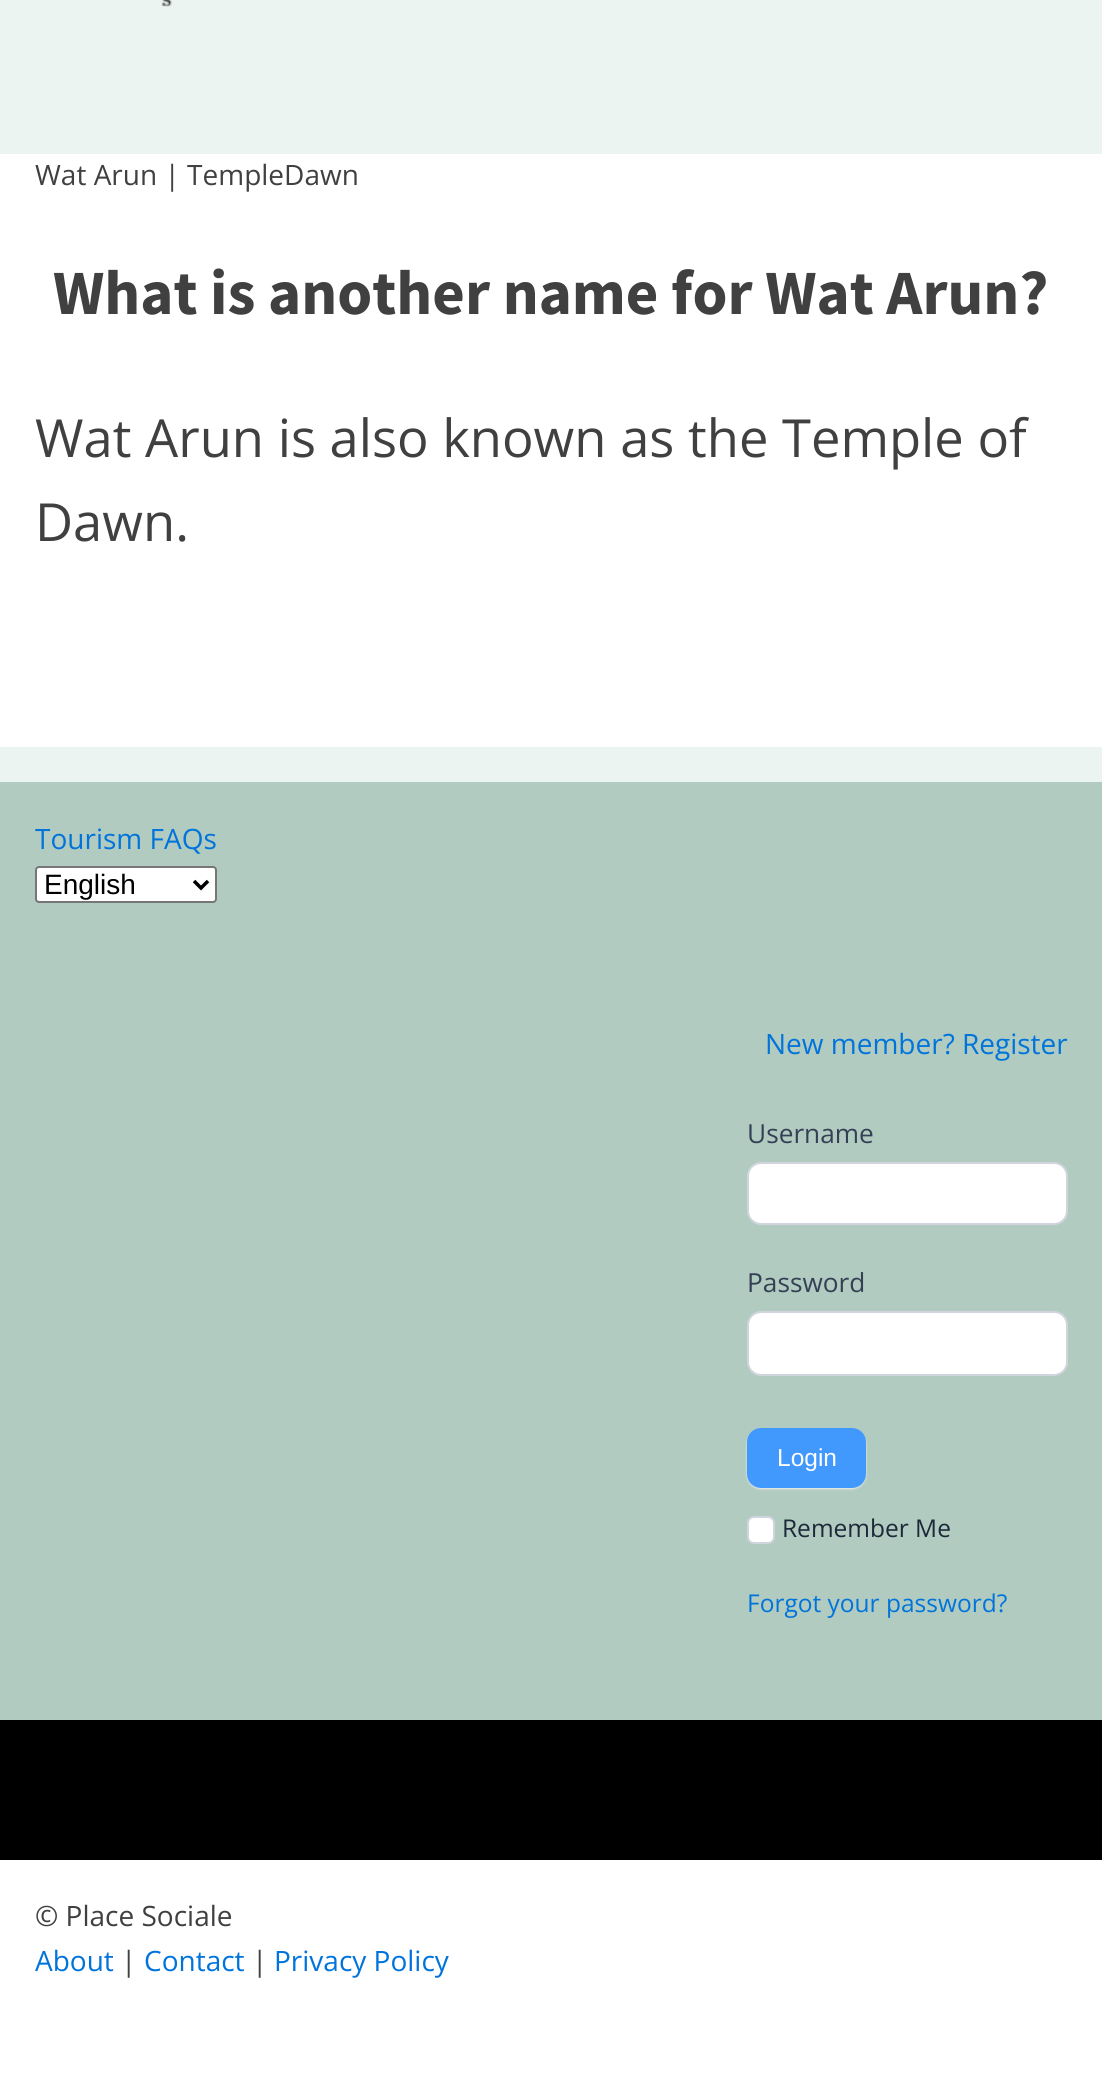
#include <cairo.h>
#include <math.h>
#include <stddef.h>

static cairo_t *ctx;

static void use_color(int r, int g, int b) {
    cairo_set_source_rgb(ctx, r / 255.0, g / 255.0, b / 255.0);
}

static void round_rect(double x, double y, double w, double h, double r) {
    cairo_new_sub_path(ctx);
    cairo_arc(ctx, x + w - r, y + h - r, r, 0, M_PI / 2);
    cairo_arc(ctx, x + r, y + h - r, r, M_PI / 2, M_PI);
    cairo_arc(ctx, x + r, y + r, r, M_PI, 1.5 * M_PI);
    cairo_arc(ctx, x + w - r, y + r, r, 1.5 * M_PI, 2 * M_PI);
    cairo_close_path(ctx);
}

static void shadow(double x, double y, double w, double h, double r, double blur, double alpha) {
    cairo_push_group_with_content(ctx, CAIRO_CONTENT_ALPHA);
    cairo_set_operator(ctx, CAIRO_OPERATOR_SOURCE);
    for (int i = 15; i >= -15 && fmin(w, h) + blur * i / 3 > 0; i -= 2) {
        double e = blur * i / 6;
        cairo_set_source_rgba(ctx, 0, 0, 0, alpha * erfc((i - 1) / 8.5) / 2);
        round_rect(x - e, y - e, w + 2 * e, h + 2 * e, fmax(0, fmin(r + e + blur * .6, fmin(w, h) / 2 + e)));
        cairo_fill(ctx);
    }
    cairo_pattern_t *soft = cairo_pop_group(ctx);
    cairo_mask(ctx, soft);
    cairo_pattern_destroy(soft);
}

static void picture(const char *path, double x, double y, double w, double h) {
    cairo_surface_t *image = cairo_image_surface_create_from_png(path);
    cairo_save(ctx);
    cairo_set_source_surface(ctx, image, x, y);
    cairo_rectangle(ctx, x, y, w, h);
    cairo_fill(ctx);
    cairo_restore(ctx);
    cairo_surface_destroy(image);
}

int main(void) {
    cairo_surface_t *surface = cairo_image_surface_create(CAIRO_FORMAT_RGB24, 1102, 2089);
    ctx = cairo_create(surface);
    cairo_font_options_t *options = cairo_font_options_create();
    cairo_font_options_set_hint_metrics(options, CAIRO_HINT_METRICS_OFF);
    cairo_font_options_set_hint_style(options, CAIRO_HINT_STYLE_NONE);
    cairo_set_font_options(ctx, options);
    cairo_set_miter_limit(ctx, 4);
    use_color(255, 255, 255);
    cairo_paint(ctx);
    use_color(235, 244, 240);
    cairo_rectangle(ctx, 0, 0, 1102, 782);
    cairo_fill(ctx);
    picture("img1.png", 161, 0, 11, 7);
    use_color(255, 255, 255);
    cairo_rectangle(ctx, 0, 154, 1102, 593);
    cairo_fill(ctx);
    cairo_select_font_face(ctx, "Open Sans", CAIRO_FONT_SLANT_NORMAL, CAIRO_FONT_WEIGHT_NORMAL);
    cairo_set_font_size(ctx, 28);
    use_color(64, 64, 64);
    cairo_move_to(ctx, 35, 185);
    cairo_show_text(ctx, "Wat Arun | TempleDawn");
    cairo_select_font_face(ctx, "Source Sans Pro", CAIRO_FONT_SLANT_NORMAL, CAIRO_FONT_WEIGHT_BOLD);
    cairo_set_font_size(ctx, 63);
    cairo_move_to(ctx, 53, 314);
    cairo_show_text(ctx, "What is another name for Wat Arun?");
    cairo_select_font_face(ctx, "Open Sans", CAIRO_FONT_SLANT_NORMAL, CAIRO_FONT_WEIGHT_NORMAL);
    cairo_set_font_size(ctx, 52.5);
    cairo_move_to(ctx, 35, 457);
    cairo_show_text(ctx, "Wat Arun is also known as the Temple of");
    cairo_move_to(ctx, 35, 541);
    cairo_show_text(ctx, "Dawn.");
    use_color(177, 203, 192);
    cairo_rectangle(ctx, 0, 782, 1102, 938);
    cairo_fill(ctx);
    cairo_set_font_size(ctx, 28);
    use_color(0, 116, 219);
    cairo_move_to(ctx, 35, 849);
    cairo_show_text(ctx, "Tourism FAQs");
    use_color(255, 255, 255);
    round_rect(36, 867, 180, 35, 3);
    cairo_fill_preserve(ctx);
    use_color(118, 118, 118);
    cairo_stroke(ctx);
    cairo_new_path(ctx);
    cairo_move_to(ctx, 194, 881);
    cairo_line_to(ctx, 201, 888);
    cairo_line_to(ctx, 208, 881);
    use_color(0, 0, 0);
    cairo_set_line_width(ctx, 3.5);
    cairo_stroke(ctx);
    cairo_select_font_face(ctx, "Liberation Sans", CAIRO_FONT_SLANT_NORMAL, CAIRO_FONT_WEIGHT_NORMAL);
    cairo_move_to(ctx, 44, 894);
    cairo_show_text(ctx, "English");
    cairo_select_font_face(ctx, "Open Sans", CAIRO_FONT_SLANT_NORMAL, CAIRO_FONT_WEIGHT_NORMAL);
    use_color(0, 116, 219);
    cairo_move_to(ctx, 765, 1054);
    cairo_show_text(ctx, "New member? Register");
    cairo_set_font_size(ctx, 26.25);
    use_color(52, 64, 84);
    cairo_move_to(ctx, 747, 1143);
    cairo_show_text(ctx, "Username");
    use_color(255, 255, 255);
    round_rect(748, 1163, 319, 61, 13);
    cairo_fill_preserve(ctx);
    use_color(208, 213, 221);
    cairo_set_line_width(ctx, 2);
    cairo_stroke(ctx);
    use_color(52, 64, 84);
    cairo_move_to(ctx, 747, 1292);
    cairo_show_text(ctx, "Password");
    use_color(255, 255, 255);
    round_rect(748, 1312, 319, 63, 13);
    cairo_fill_preserve(ctx);
    use_color(208, 213, 221);
    cairo_stroke(ctx);
    use_color(238, 238, 238);
    shadow(747, 1430, 119, 59, 14, 1, 1);
    use_color(65, 153, 253);
    round_rect(748, 1429, 117, 58, 13);
    cairo_fill_preserve(ctx);
    cairo_stroke(ctx);
    cairo_select_font_face(ctx, "Liberation Sans", CAIRO_FONT_SLANT_NORMAL, CAIRO_FONT_WEIGHT_NORMAL);
    cairo_set_font_size(ctx, 24.5);
    use_color(255, 255, 255);
    cairo_move_to(ctx, 777, 1466);
    cairo_show_text(ctx, "Login");
    round_rect(748, 1517, 26, 26, 6);
    cairo_fill_preserve(ctx);
    use_color(208, 213, 221);
    cairo_stroke(ctx);
    cairo_select_font_face(ctx, "Open Sans", CAIRO_FONT_SLANT_NORMAL, CAIRO_FONT_WEIGHT_NORMAL);
    use_color(29, 41, 57);
    cairo_move_to(ctx, 782, 1537);
    cairo_show_text(ctx, "Remember Me");
    use_color(0, 116, 219);
    cairo_move_to(ctx, 747, 1612);
    cairo_show_text(ctx, "Forgot your password?");
    use_color(0, 0, 0);
    cairo_rectangle(ctx, 0, 1720, 1102, 140);
    cairo_fill(ctx);
    cairo_set_font_size(ctx, 28);
    use_color(64, 64, 64);
    cairo_move_to(ctx, 35, 1926);
    cairo_show_text(ctx, "© Place Sociale");
    use_color(0, 116, 219);
    cairo_move_to(ctx, 35, 1971);
    cairo_show_text(ctx, "About");
    use_color(64, 64, 64);
    cairo_move_to(ctx, 121, 1971);
    cairo_show_text(ctx, "|");
    use_color(0, 116, 219);
    cairo_move_to(ctx, 144, 1971);
    cairo_show_text(ctx, "Contact");
    use_color(64, 64, 64);
    cairo_move_to(ctx, 252, 1971);
    cairo_show_text(ctx, "|");
    use_color(0, 116, 219);
    cairo_move_to(ctx, 274, 1971);
    cairo_show_text(ctx, "Privacy Policy");
    cairo_surface_write_to_png(surface, "result.png");
    cairo_font_options_destroy(options);
    cairo_destroy(ctx);
    cairo_surface_destroy(surface);
    return 0;
}
